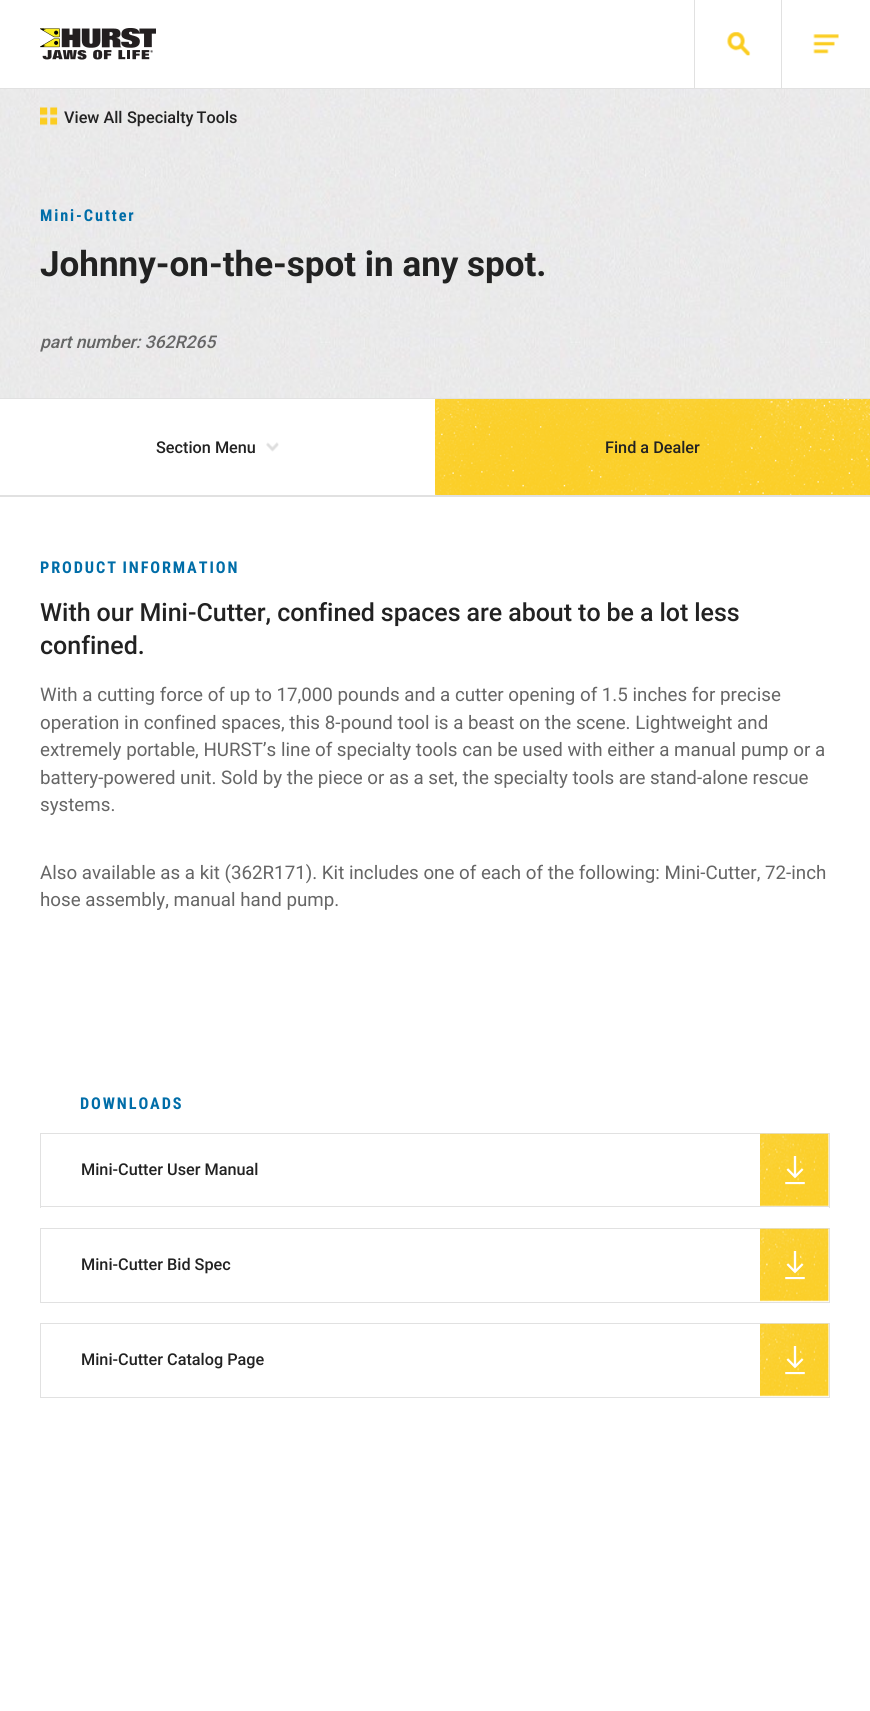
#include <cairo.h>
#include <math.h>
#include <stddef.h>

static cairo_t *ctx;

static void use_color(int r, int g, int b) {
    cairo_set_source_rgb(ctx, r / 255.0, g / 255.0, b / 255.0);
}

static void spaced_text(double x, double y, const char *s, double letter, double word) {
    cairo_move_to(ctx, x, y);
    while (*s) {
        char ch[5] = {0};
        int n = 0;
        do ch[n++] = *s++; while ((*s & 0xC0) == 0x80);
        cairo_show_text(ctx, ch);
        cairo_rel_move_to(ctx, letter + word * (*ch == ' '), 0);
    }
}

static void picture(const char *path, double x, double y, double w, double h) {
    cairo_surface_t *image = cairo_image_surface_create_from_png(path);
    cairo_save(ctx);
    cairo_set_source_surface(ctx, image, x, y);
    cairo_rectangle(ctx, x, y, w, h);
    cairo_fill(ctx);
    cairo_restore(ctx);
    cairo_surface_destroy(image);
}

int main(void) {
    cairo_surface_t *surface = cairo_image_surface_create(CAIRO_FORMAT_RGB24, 870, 1711);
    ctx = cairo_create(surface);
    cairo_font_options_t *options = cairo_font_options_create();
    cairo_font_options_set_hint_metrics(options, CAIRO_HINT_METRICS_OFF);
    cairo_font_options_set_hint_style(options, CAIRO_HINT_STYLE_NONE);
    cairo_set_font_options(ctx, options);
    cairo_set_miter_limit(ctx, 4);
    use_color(255, 255, 255);
    cairo_paint(ctx);
    picture("img1.png", 40, 28, 116, 32);
    use_color(225, 225, 225);
    cairo_rectangle(ctx, 694, 0, 1, 88);
    cairo_fill(ctx);
    cairo_rectangle(ctx, 781, 0, 1, 88);
    cairo_fill(ctx);
    picture("img2.png", 727, 32, 24, 24);
    picture("img3.png", 813, 34, 26, 20);
    cairo_rectangle(ctx, 0, 88, 870, 1);
    cairo_fill(ctx);
    picture("img4.png", 0, 89, 870, 309);
    picture("img5.png", 40, 107, 18, 19);
    cairo_select_font_face(ctx, "Roboto Medium", CAIRO_FONT_SLANT_NORMAL, CAIRO_FONT_WEIGHT_NORMAL);
    cairo_set_font_size(ctx, 16.25);
    use_color(34, 34, 34);
    cairo_move_to(ctx, 64, 123);
    cairo_show_text(ctx, "View All");
    spaced_text(127, 123, "Specialty Tools", 0, -1);
    cairo_select_font_face(ctx, "Roboto Condensed", CAIRO_FONT_SLANT_NORMAL, CAIRO_FONT_WEIGHT_BOLD);
    use_color(0, 109, 168);
    spaced_text(40, 221, "Mini-Cutter", 1.9, 0);
    cairo_select_font_face(ctx, "Roboto", CAIRO_FONT_SLANT_NORMAL, CAIRO_FONT_WEIGHT_BOLD);
    cairo_set_font_size(ctx, 35);
    use_color(34, 34, 34);
    cairo_move_to(ctx, 40, 276);
    cairo_show_text(ctx, "Johnny-on-the-spot in any spot.");
    cairo_select_font_face(ctx, "Roboto Medium", CAIRO_FONT_SLANT_ITALIC, CAIRO_FONT_WEIGHT_NORMAL);
    cairo_set_font_size(ctx, 17.5);
    use_color(102, 102, 102);
    cairo_move_to(ctx, 40, 348);
    cairo_show_text(ctx, "part number: 362R265");
    use_color(225, 225, 225);
    cairo_rectangle(ctx, 0, 398, 870, 1);
    cairo_fill(ctx);
    cairo_select_font_face(ctx, "Roboto Medium", CAIRO_FONT_SLANT_NORMAL, CAIRO_FONT_WEIGHT_NORMAL);
    cairo_set_font_size(ctx, 16.25);
    use_color(34, 34, 34);
    cairo_move_to(ctx, 156, 453);
    cairo_show_text(ctx, "Section Menu");
    picture("img6.png", 266, 442, 13, 10);
    picture("img7.png", 435, 399, 435, 96);
    cairo_move_to(ctx, 605, 453);
    cairo_show_text(ctx, "Find a Dealer");
    use_color(225, 225, 225);
    cairo_rectangle(ctx, 0, 495, 870, 2);
    cairo_fill(ctx);
    cairo_select_font_face(ctx, "Roboto Condensed", CAIRO_FONT_SLANT_NORMAL, CAIRO_FONT_WEIGHT_BOLD);
    use_color(0, 109, 168);
    spaced_text(40, 573, "PRODUCT INFORMATION", 1.9, -1);
    cairo_select_font_face(ctx, "Roboto Medium", CAIRO_FONT_SLANT_NORMAL, CAIRO_FONT_WEIGHT_NORMAL);
    cairo_set_font_size(ctx, 25);
    use_color(34, 34, 34);
    spaced_text(40, 621, "With our Mini-Cutter, confined spaces are about to be a lot less", 0, -0.25);
    cairo_move_to(ctx, 40, 654);
    cairo_show_text(ctx, "confined.");
    cairo_select_font_face(ctx, "Roboto", CAIRO_FONT_SLANT_NORMAL, CAIRO_FONT_WEIGHT_NORMAL);
    cairo_set_font_size(ctx, 18.75);
    use_color(102, 102, 102);
    cairo_move_to(ctx, 40, 701);
    cairo_show_text(ctx, "With a cutting force of up to 17,000 pounds and a cutter opening of 1.5 inches for precise");
    cairo_move_to(ctx, 40, 729);
    cairo_show_text(ctx, "operation in confined spaces, this 8-pound tool is a beast on the scene. Lightweight and");
    cairo_move_to(ctx, 40, 756);
    cairo_show_text(ctx, "extremely portable, HURST’s line of specialty tools can be used with either a manual pump or a");
    cairo_move_to(ctx, 40, 784);
    cairo_show_text(ctx, "battery-powered unit. Sold by the piece or as a set, the specialty tools are stand-alone rescue");
    cairo_move_to(ctx, 40, 811);
    cairo_show_text(ctx, "systems.");
    cairo_move_to(ctx, 40, 879);
    cairo_show_text(ctx, "Also available as a kit (362R171). Kit includes one of each of the following: Mini-Cutter, 72-inch");
    cairo_move_to(ctx, 40, 906);
    cairo_show_text(ctx, "hose assembly, manual hand pump.");
    use_color(225, 225, 225);
    cairo_rectangle(ctx, 40, 1133, 790, 1);
    cairo_fill(ctx);
    cairo_select_font_face(ctx, "Roboto Condensed", CAIRO_FONT_SLANT_NORMAL, CAIRO_FONT_WEIGHT_BOLD);
    cairo_set_font_size(ctx, 16.25);
    use_color(0, 109, 168);
    spaced_text(80, 1109, "DOWNLOADS", 1.9, 0);
    use_color(225, 225, 225);
    cairo_rectangle(ctx, 829, 1134, 1, 74);
    cairo_fill(ctx);
    cairo_rectangle(ctx, 40, 1206, 790, 1);
    cairo_fill(ctx);
    cairo_rectangle(ctx, 40, 1134, 1, 74);
    cairo_fill(ctx);
    cairo_select_font_face(ctx, "Roboto Medium", CAIRO_FONT_SLANT_NORMAL, CAIRO_FONT_WEIGHT_NORMAL);
    use_color(34, 34, 34);
    cairo_move_to(ctx, 81, 1175);
    cairo_show_text(ctx, "Mini-Cutter User Manual");
    picture("img8.png", 760, 1133, 69, 74);
    picture("img9.png", 785, 1156, 20, 29);
    cairo_rectangle(ctx, 40.5, 1228.5, 789, 74);
    use_color(225, 225, 225);
    cairo_set_line_width(ctx, 1);
    cairo_stroke(ctx);
    use_color(34, 34, 34);
    cairo_move_to(ctx, 81, 1270);
    cairo_show_text(ctx, "Mini-Cutter Bid Spec");
    picture("img10.png", 760, 1228, 69, 74);
    picture("img9.png", 785, 1251, 20, 29);
    cairo_rectangle(ctx, 40.5, 1323.5, 789, 74);
    use_color(225, 225, 225);
    cairo_stroke(ctx);
    use_color(34, 34, 34);
    cairo_move_to(ctx, 81, 1365);
    cairo_show_text(ctx, "Mini-Cutter Catalog Page");
    picture("img10.png", 760, 1323, 69, 74);
    picture("img9.png", 785, 1346, 20, 29);
    cairo_surface_write_to_png(surface, "result.png");
    cairo_font_options_destroy(options);
    cairo_destroy(ctx);
    cairo_surface_destroy(surface);
    return 0;
}
